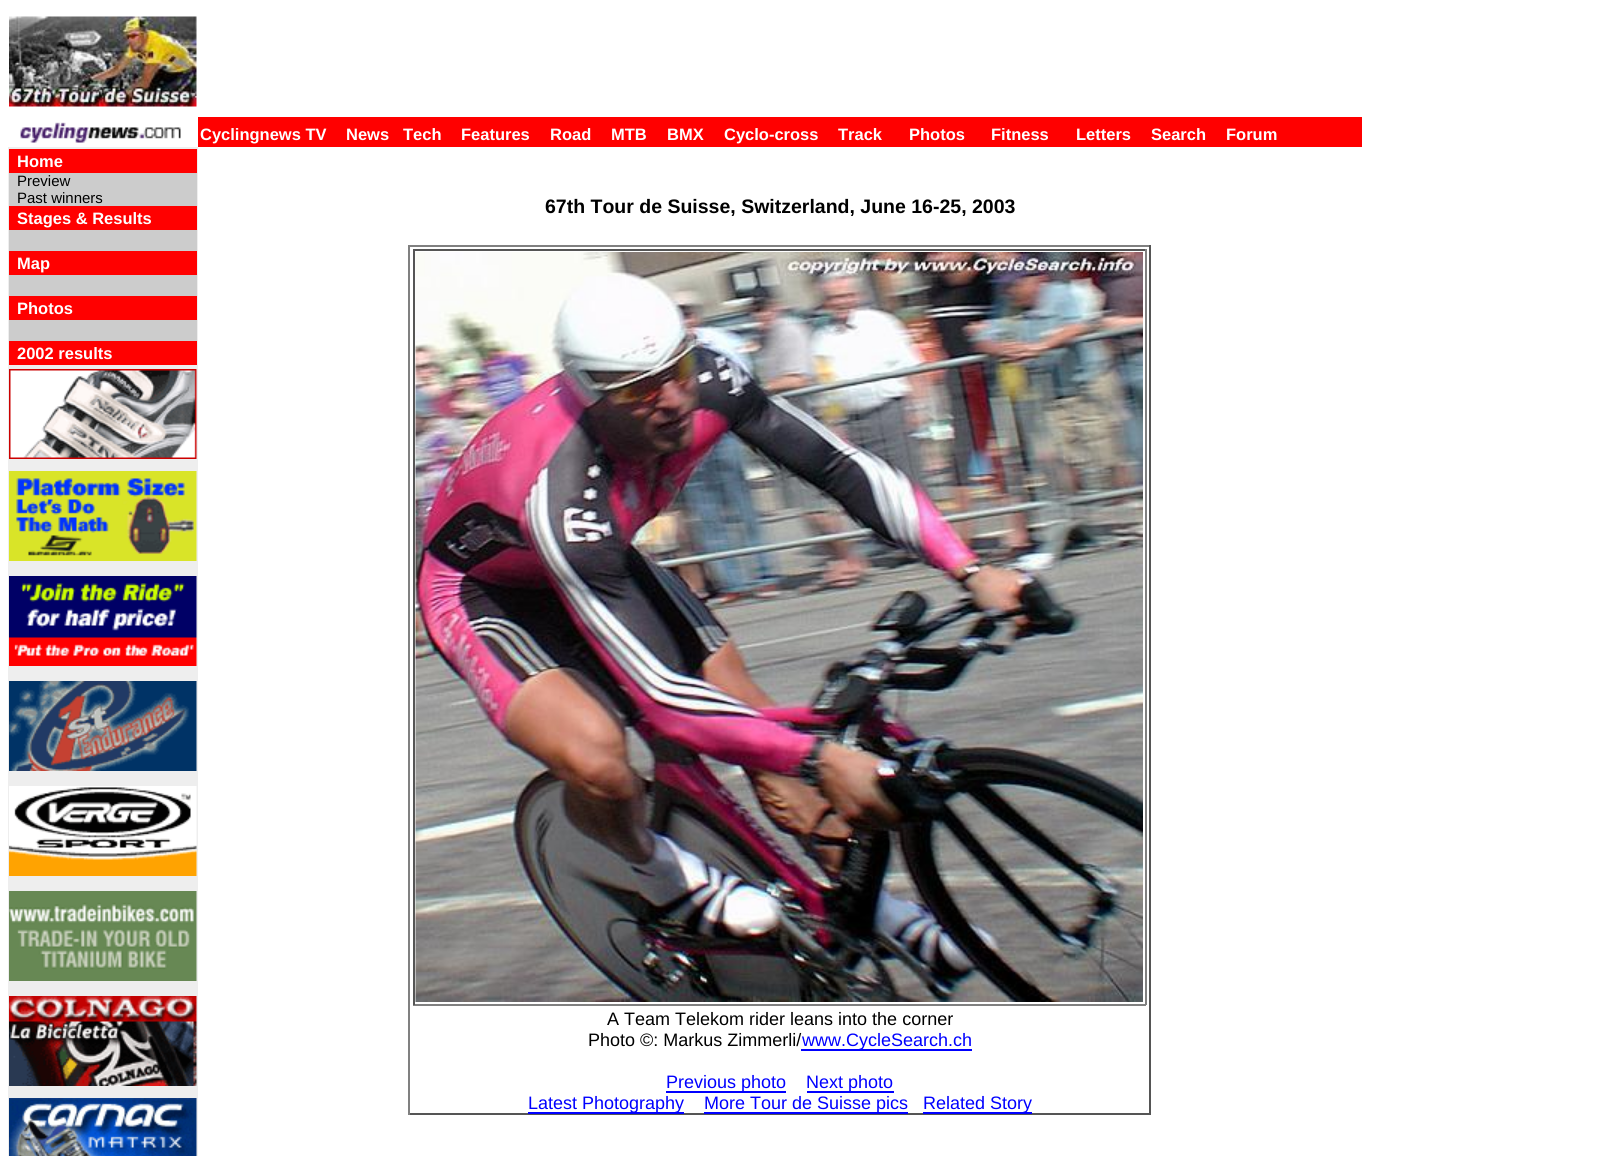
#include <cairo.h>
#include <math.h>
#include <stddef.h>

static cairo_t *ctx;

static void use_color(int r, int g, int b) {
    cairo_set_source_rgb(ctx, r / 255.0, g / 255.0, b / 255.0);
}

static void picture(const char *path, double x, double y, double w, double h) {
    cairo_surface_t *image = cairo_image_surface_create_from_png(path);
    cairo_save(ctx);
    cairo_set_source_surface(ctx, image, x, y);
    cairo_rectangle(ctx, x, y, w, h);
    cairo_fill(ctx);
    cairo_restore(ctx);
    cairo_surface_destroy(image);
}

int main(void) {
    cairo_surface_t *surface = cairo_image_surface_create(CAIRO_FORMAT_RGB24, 1597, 1156);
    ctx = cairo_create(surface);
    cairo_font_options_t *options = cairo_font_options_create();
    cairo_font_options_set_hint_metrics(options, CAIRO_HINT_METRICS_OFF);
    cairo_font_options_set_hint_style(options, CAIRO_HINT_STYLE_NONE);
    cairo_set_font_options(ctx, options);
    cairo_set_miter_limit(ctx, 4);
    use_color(255, 255, 255);
    cairo_paint(ctx);
    picture("img1.png", 9, 16, 188, 91);
    picture("img2.png", 20, 122, 161, 21);
    use_color(255, 0, 0);
    cairo_rectangle(ctx, 198, 117, 1164, 30);
    cairo_fill(ctx);
    cairo_select_font_face(ctx, "Liberation Sans", CAIRO_FONT_SLANT_NORMAL, CAIRO_FONT_WEIGHT_BOLD);
    cairo_set_font_size(ctx, 16.5);
    use_color(255, 255, 255);
    cairo_move_to(ctx, 200, 140);
    cairo_show_text(ctx, "Cyclingnews TV");
    cairo_move_to(ctx, 346, 140);
    cairo_show_text(ctx, "News");
    cairo_move_to(ctx, 403, 140);
    cairo_show_text(ctx, "Tech");
    cairo_move_to(ctx, 461, 140);
    cairo_show_text(ctx, "Features");
    cairo_move_to(ctx, 550, 140);
    cairo_show_text(ctx, "Road");
    cairo_move_to(ctx, 611, 140);
    cairo_show_text(ctx, "MTB");
    cairo_move_to(ctx, 667, 140);
    cairo_show_text(ctx, "BMX");
    cairo_move_to(ctx, 724, 140);
    cairo_show_text(ctx, "Cyclo-cross");
    cairo_move_to(ctx, 838, 140);
    cairo_show_text(ctx, "Track");
    cairo_move_to(ctx, 909, 140);
    cairo_show_text(ctx, "Photos");
    cairo_move_to(ctx, 991, 140);
    cairo_show_text(ctx, "Fitness");
    cairo_move_to(ctx, 1076, 140);
    cairo_show_text(ctx, "Letters");
    cairo_move_to(ctx, 1151, 140);
    cairo_show_text(ctx, "Search");
    cairo_move_to(ctx, 1226, 140);
    cairo_show_text(ctx, "Forum");
    use_color(238, 238, 238);
    cairo_rectangle(ctx, 8, 147, 190, 1009);
    cairo_fill(ctx);
    use_color(255, 0, 0);
    cairo_rectangle(ctx, 9, 149, 188, 24);
    cairo_fill(ctx);
    use_color(255, 255, 255);
    cairo_move_to(ctx, 17, 167);
    cairo_show_text(ctx, "Home");
    use_color(204, 204, 204);
    cairo_rectangle(ctx, 9, 173, 188, 33);
    cairo_fill(ctx);
    cairo_select_font_face(ctx, "Liberation Sans", CAIRO_FONT_SLANT_NORMAL, CAIRO_FONT_WEIGHT_NORMAL);
    cairo_set_font_size(ctx, 15);
    use_color(0, 0, 0);
    cairo_move_to(ctx, 17, 186);
    cairo_show_text(ctx, "Preview");
    cairo_move_to(ctx, 17, 203);
    cairo_show_text(ctx, "Past winners");
    use_color(255, 0, 0);
    cairo_rectangle(ctx, 9, 206, 188, 24);
    cairo_fill(ctx);
    cairo_select_font_face(ctx, "Liberation Sans", CAIRO_FONT_SLANT_NORMAL, CAIRO_FONT_WEIGHT_BOLD);
    cairo_set_font_size(ctx, 16.5);
    use_color(255, 255, 255);
    cairo_move_to(ctx, 17, 224);
    cairo_show_text(ctx, "Stages & Results");
    use_color(204, 204, 204);
    cairo_rectangle(ctx, 9, 230, 188, 21);
    cairo_fill(ctx);
    use_color(255, 0, 0);
    cairo_rectangle(ctx, 9, 251, 188, 24);
    cairo_fill(ctx);
    use_color(255, 255, 255);
    cairo_move_to(ctx, 17, 269);
    cairo_show_text(ctx, "Map");
    use_color(204, 204, 204);
    cairo_rectangle(ctx, 9, 275, 188, 21);
    cairo_fill(ctx);
    use_color(255, 0, 0);
    cairo_rectangle(ctx, 9, 296, 188, 24);
    cairo_fill(ctx);
    use_color(255, 255, 255);
    cairo_move_to(ctx, 17, 314);
    cairo_show_text(ctx, "Photos");
    use_color(204, 204, 204);
    cairo_rectangle(ctx, 9, 320, 188, 21);
    cairo_fill(ctx);
    use_color(255, 0, 0);
    cairo_rectangle(ctx, 9, 341, 188, 24);
    cairo_fill(ctx);
    use_color(255, 255, 255);
    cairo_move_to(ctx, 17, 359);
    cairo_show_text(ctx, "2002 results");
    picture("img3.png", 9, 369, 188, 90);
    picture("img4.png", 9, 471, 188, 90);
    picture("img5.png", 9, 576, 188, 90);
    picture("img6.png", 9, 681, 188, 90);
    picture("img7.png", 9, 786, 188, 90);
    picture("img8.png", 9, 891, 188, 90);
    picture("img9.png", 9, 996, 188, 90);
    picture("img10.png", 9, 1098, 188, 58);
    cairo_set_font_size(ctx, 19.5);
    use_color(0, 0, 0);
    cairo_move_to(ctx, 545, 213);
    cairo_show_text(ctx, "67th Tour de Suisse, Switzerland, June 16-25, 2003");
    use_color(128, 128, 128);
    cairo_rectangle(ctx, 408, 245, 743, 2);
    cairo_fill(ctx);
    use_color(85, 85, 85);
    cairo_rectangle(ctx, 1149, 245, 2, 870);
    cairo_fill(ctx);
    cairo_rectangle(ctx, 408, 1113, 743, 2);
    cairo_fill(ctx);
    use_color(128, 128, 128);
    cairo_rectangle(ctx, 408, 245, 2, 870);
    cairo_fill(ctx);
    use_color(85, 85, 85);
    cairo_rectangle(ctx, 413, 249, 733, 2);
    cairo_fill(ctx);
    use_color(128, 128, 128);
    cairo_rectangle(ctx, 1145, 249, 2, 756);
    cairo_fill(ctx);
    cairo_rectangle(ctx, 413, 1004, 733, 2);
    cairo_fill(ctx);
    use_color(85, 85, 85);
    cairo_rectangle(ctx, 413, 249, 2, 756);
    cairo_fill(ctx);
    picture("img11.png", 415, 252, 728, 750);
    cairo_select_font_face(ctx, "Liberation Sans", CAIRO_FONT_SLANT_NORMAL, CAIRO_FONT_WEIGHT_NORMAL);
    cairo_set_font_size(ctx, 18);
    use_color(0, 0, 0);
    cairo_move_to(ctx, 607, 1025);
    cairo_show_text(ctx, "A Team Telekom rider leans into the corner");
    cairo_move_to(ctx, 588, 1046);
    cairo_show_text(ctx, "Photo ©: Markus Zimmerli/");
    use_color(0, 0, 255);
    cairo_rectangle(ctx, 801, 1049, 171, 2);
    cairo_fill(ctx);
    cairo_move_to(ctx, 802, 1046);
    cairo_show_text(ctx, "www.CycleSearch.ch");
    cairo_rectangle(ctx, 666, 1091, 120, 2);
    cairo_fill(ctx);
    cairo_move_to(ctx, 666, 1088);
    cairo_show_text(ctx, "Previous photo");
    cairo_rectangle(ctx, 807, 1091, 87, 2);
    cairo_fill(ctx);
    cairo_move_to(ctx, 806, 1088);
    cairo_show_text(ctx, "Next photo");
    cairo_rectangle(ctx, 528, 1112, 156, 2);
    cairo_fill(ctx);
    cairo_move_to(ctx, 528, 1109);
    cairo_show_text(ctx, "Latest Photography");
    cairo_rectangle(ctx, 704, 1112, 204, 2);
    cairo_fill(ctx);
    cairo_move_to(ctx, 704, 1109);
    cairo_show_text(ctx, "More Tour de Suisse pics");
    cairo_rectangle(ctx, 923, 1112, 109, 2);
    cairo_fill(ctx);
    cairo_move_to(ctx, 923, 1109);
    cairo_show_text(ctx, "Related Story");
    cairo_surface_write_to_png(surface, "result.png");
    cairo_font_options_destroy(options);
    cairo_destroy(ctx);
    cairo_surface_destroy(surface);
    return 0;
}
